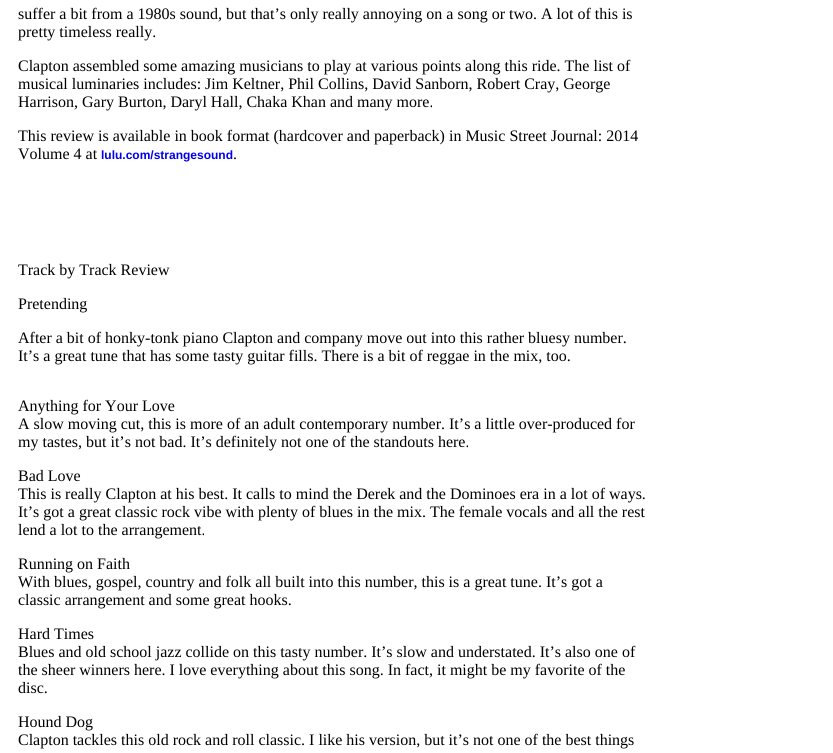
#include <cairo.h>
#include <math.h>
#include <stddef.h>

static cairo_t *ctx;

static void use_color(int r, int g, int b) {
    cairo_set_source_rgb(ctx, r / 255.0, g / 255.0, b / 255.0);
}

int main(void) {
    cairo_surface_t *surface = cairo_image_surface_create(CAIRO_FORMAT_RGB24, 833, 753);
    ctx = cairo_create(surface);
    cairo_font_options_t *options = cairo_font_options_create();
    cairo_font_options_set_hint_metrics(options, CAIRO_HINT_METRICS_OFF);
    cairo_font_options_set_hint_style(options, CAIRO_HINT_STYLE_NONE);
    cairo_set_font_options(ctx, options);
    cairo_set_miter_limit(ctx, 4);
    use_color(255, 255, 255);
    cairo_paint(ctx);
    cairo_select_font_face(ctx, "Liberation Serif", CAIRO_FONT_SLANT_NORMAL, CAIRO_FONT_WEIGHT_NORMAL);
    cairo_set_font_size(ctx, 16);
    use_color(0, 0, 0);
    cairo_move_to(ctx, 18, 19);
    cairo_show_text(ctx, "suffer a bit from a 1980s sound, but that’s only really annoying on a song or two. A lot of this is");
    cairo_move_to(ctx, 18, 37);
    cairo_show_text(ctx, "pretty timeless really.");
    cairo_move_to(ctx, 18, 71);
    cairo_show_text(ctx, "Clapton assembled some amazing musicians to play at various points along this ride. The list of");
    cairo_move_to(ctx, 18, 89);
    cairo_show_text(ctx, "musical luminaries includes: Jim Keltner, Phil Collins, David Sanborn, Robert Cray, George");
    cairo_move_to(ctx, 18, 107);
    cairo_show_text(ctx, "Harrison, Gary Burton, Daryl Hall, Chaka Khan and many more.");
    cairo_move_to(ctx, 18, 141);
    cairo_show_text(ctx, "This review is available in book format (hardcover and paperback) in Music Street Journal: 2014");
    cairo_move_to(ctx, 18, 159);
    cairo_show_text(ctx, "Volume 4 at");
    cairo_select_font_face(ctx, "Liberation Sans", CAIRO_FONT_SLANT_NORMAL, CAIRO_FONT_WEIGHT_BOLD);
    cairo_set_font_size(ctx, 12);
    use_color(0, 0, 238);
    cairo_move_to(ctx, 101, 159);
    cairo_show_text(ctx, "lulu.com/strangesound");
    cairo_select_font_face(ctx, "Liberation Serif", CAIRO_FONT_SLANT_NORMAL, CAIRO_FONT_WEIGHT_NORMAL);
    cairo_set_font_size(ctx, 16);
    use_color(0, 0, 0);
    cairo_move_to(ctx, 233, 159);
    cairo_show_text(ctx, ".");
    cairo_move_to(ctx, 18, 275);
    cairo_show_text(ctx, "Track by Track Review");
    cairo_move_to(ctx, 18, 309);
    cairo_show_text(ctx, "Pretending");
    cairo_move_to(ctx, 18, 343);
    cairo_show_text(ctx, "After a bit of honky-tonk piano Clapton and company move out into this rather bluesy number.");
    cairo_move_to(ctx, 18, 361);
    cairo_show_text(ctx, "It’s a great tune that has some tasty guitar fills. There is a bit of reggae in the mix, too.");
    cairo_move_to(ctx, 18, 411);
    cairo_show_text(ctx, "Anything for Your Love");
    cairo_move_to(ctx, 18, 429);
    cairo_show_text(ctx, "A slow moving cut, this is more of an adult contemporary number. It’s a little over-produced for");
    cairo_move_to(ctx, 18, 447);
    cairo_show_text(ctx, "my tastes, but it’s not bad. It’s definitely not one of the standouts here.");
    cairo_move_to(ctx, 18, 481);
    cairo_show_text(ctx, "Bad Love");
    cairo_move_to(ctx, 18, 499);
    cairo_show_text(ctx, "This is really Clapton at his best. It calls to mind the Derek and the Dominoes era in a lot of ways.");
    cairo_move_to(ctx, 18, 517);
    cairo_show_text(ctx, "It’s got a great classic rock vibe with plenty of blues in the mix. The female vocals and all the rest");
    cairo_move_to(ctx, 18, 535);
    cairo_show_text(ctx, "lend a lot to the arrangement.");
    cairo_move_to(ctx, 18, 569);
    cairo_show_text(ctx, "Running on Faith");
    cairo_move_to(ctx, 18, 587);
    cairo_show_text(ctx, "With blues, gospel, country and folk all built into this number, this is a great tune. It’s got a");
    cairo_move_to(ctx, 18, 605);
    cairo_show_text(ctx, "classic arrangement and some great hooks.");
    cairo_move_to(ctx, 18, 639);
    cairo_show_text(ctx, "Hard Times");
    cairo_move_to(ctx, 18, 657);
    cairo_show_text(ctx, "Blues and old school jazz collide on this tasty number. It’s slow and understated. It’s also one of");
    cairo_move_to(ctx, 18, 675);
    cairo_show_text(ctx, "the sheer winners here. I love everything about this song. In fact, it might be my favorite of the");
    cairo_move_to(ctx, 18, 693);
    cairo_show_text(ctx, "disc.");
    cairo_move_to(ctx, 18, 727);
    cairo_show_text(ctx, "Hound Dog");
    cairo_move_to(ctx, 18, 745);
    cairo_show_text(ctx, "Clapton tackles this old rock and roll classic. I like his version, but it’s not one of the best things");
    cairo_surface_write_to_png(surface, "result.png");
    cairo_font_options_destroy(options);
    cairo_destroy(ctx);
    cairo_surface_destroy(surface);
    return 0;
}
